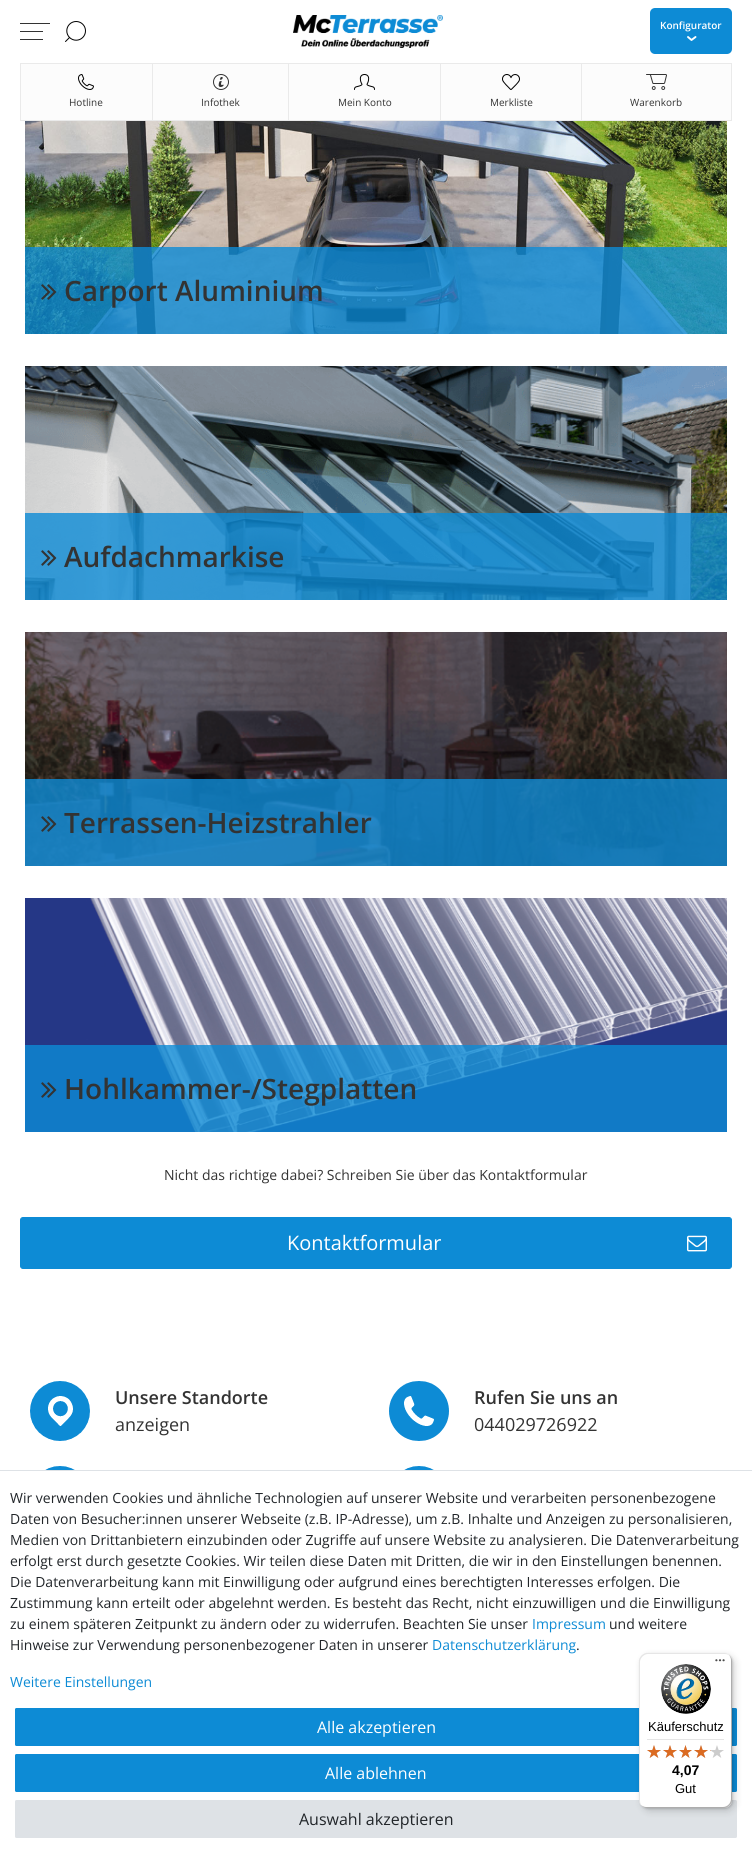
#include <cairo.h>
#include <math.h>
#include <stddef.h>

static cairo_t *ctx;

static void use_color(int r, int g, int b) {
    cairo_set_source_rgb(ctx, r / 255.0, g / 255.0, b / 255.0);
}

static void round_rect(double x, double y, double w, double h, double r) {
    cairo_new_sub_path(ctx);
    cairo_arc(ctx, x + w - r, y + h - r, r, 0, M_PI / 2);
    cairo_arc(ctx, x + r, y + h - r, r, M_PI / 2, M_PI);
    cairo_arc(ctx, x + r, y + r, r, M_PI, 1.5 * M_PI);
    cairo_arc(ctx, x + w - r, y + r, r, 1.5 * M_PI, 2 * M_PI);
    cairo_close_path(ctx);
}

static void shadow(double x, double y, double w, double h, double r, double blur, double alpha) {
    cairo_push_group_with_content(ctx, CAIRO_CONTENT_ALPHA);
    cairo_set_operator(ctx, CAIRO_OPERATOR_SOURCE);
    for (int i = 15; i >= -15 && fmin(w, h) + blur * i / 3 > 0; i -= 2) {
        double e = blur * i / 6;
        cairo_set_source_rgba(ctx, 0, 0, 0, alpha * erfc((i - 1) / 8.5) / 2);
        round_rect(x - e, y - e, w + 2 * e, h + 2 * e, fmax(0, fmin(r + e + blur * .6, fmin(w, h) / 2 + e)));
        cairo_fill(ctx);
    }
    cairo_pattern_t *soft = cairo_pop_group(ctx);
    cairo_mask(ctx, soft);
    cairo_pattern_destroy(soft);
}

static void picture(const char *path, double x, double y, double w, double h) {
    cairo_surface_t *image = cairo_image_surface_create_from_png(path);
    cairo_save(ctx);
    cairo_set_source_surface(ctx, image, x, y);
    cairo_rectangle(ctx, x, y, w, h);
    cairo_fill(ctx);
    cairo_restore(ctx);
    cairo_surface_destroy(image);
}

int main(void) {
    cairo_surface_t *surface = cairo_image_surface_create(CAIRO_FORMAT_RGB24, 752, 1862);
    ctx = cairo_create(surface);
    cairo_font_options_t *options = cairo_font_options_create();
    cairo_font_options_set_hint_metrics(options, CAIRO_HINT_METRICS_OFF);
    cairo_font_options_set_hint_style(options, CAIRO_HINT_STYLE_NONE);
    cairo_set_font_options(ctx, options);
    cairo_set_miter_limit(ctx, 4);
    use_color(255, 255, 255);
    cairo_paint(ctx);
    use_color(51, 51, 51);
    cairo_rectangle(ctx, 20, 31, 23, 1);
    cairo_fill(ctx);
    cairo_rectangle(ctx, 20, 23, 30, 1);
    cairo_fill(ctx);
    cairo_rectangle(ctx, 20, 39, 23, 1);
    cairo_fill(ctx);
    picture("img1.png", 65, 21, 21, 21);
    picture("img2.png", 293, 15, 150, 33);
    use_color(13, 139, 213);
    round_rect(650, 8, 82, 46, 5);
    cairo_fill(ctx);
    cairo_select_font_face(ctx, "Open Sans SemiBold", CAIRO_FONT_SLANT_NORMAL, CAIRO_FONT_WEIGHT_NORMAL);
    cairo_set_font_size(ctx, 10);
    use_color(255, 255, 255);
    cairo_move_to(ctx, 660, 29);
    cairo_show_text(ctx, "Konfigurator");
    cairo_save(ctx);
    cairo_new_path(ctx);
    cairo_move_to(ctx, 696.5, 36);
    cairo_line_to(ctx, 696.5, 41);
    cairo_line_to(ctx, 685.5, 41);
    cairo_line_to(ctx, 685.5, 36);
    cairo_close_path(ctx);
    cairo_clip(ctx);
    cairo_new_path(ctx);
    cairo_move_to(ctx, 695.5, 37);
    cairo_line_to(ctx, 691.5, 40);
    cairo_line_to(ctx, 688, 37);
    cairo_set_line_width(ctx, 1.9);
    cairo_set_line_cap(ctx, CAIRO_LINE_CAP_ROUND);
    cairo_set_line_join(ctx, CAIRO_LINE_JOIN_ROUND);
    cairo_stroke(ctx);
    cairo_restore(ctx);
    use_color(252, 252, 252);
    cairo_rectangle(ctx, 21, 64, 710, 56);
    cairo_fill(ctx);
    use_color(234, 234, 234);
    cairo_rectangle(ctx, 20, 63, 561, 1);
    cairo_fill(ctx);
    cairo_rectangle(ctx, 20, 120, 561, 1);
    cairo_fill(ctx);
    cairo_rectangle(ctx, 20, 63, 1, 58);
    cairo_fill(ctx);
    picture("img3.png", 78, 74, 16, 16);
    cairo_select_font_face(ctx, "Open Sans", CAIRO_FONT_SLANT_NORMAL, CAIRO_FONT_WEIGHT_NORMAL);
    use_color(51, 51, 51);
    cairo_move_to(ctx, 69, 106);
    cairo_show_text(ctx, "Hotline");
    use_color(234, 234, 234);
    cairo_rectangle(ctx, 152, 63, 1, 58);
    cairo_fill(ctx);
    picture("img4.png", 213, 74, 16, 16);
    use_color(51, 51, 51);
    cairo_move_to(ctx, 201, 106);
    cairo_show_text(ctx, "Infothek");
    use_color(234, 234, 234);
    cairo_rectangle(ctx, 288, 63, 1, 58);
    cairo_fill(ctx);
    picture("img5.png", 354, 74, 21, 16);
    use_color(51, 51, 51);
    cairo_move_to(ctx, 338, 106);
    cairo_show_text(ctx, "Mein Konto");
    use_color(234, 234, 234);
    cairo_rectangle(ctx, 440, 63, 1, 58);
    cairo_fill(ctx);
    picture("img6.png", 502, 74, 18, 16);
    use_color(51, 51, 51);
    cairo_move_to(ctx, 490, 106);
    cairo_show_text(ctx, "Merkliste");
    cairo_rectangle(ctx, 581.5, 63.5, 150, 57);
    use_color(234, 234, 234);
    cairo_set_line_width(ctx, 1);
    cairo_stroke(ctx);
    picture("img7.png", 646, 74, 21, 16);
    use_color(51, 51, 51);
    cairo_move_to(ctx, 630, 106);
    cairo_show_text(ctx, "Warenkorb");
    picture("img8.png", 25, 121, 702, 213);
    cairo_set_source_rgba(ctx, 0.051, 0.545, 0.835, 0.8);
    cairo_rectangle(ctx, 25, 247, 702, 87);
    cairo_fill(ctx);
    picture("img9.png", 41, 284, 16, 16);
    cairo_select_font_face(ctx, "Open Sans SemiBold", CAIRO_FONT_SLANT_NORMAL, CAIRO_FONT_WEIGHT_NORMAL);
    cairo_set_font_size(ctx, 28);
    use_color(51, 51, 51);
    cairo_move_to(ctx, 64, 301);
    cairo_show_text(ctx, "Carport Aluminium");
    picture("img10.png", 25, 366, 702, 234);
    cairo_set_source_rgba(ctx, 0.051, 0.545, 0.835, 0.8);
    cairo_rectangle(ctx, 25, 513, 702, 87);
    cairo_fill(ctx);
    picture("img11.png", 41, 550, 16, 16);
    use_color(51, 51, 51);
    cairo_move_to(ctx, 64, 567);
    cairo_show_text(ctx, "Aufdachmarkise");
    picture("img12.png", 25, 632, 702, 234);
    cairo_set_source_rgba(ctx, 0.051, 0.545, 0.835, 0.8);
    cairo_rectangle(ctx, 25, 779, 702, 87);
    cairo_fill(ctx);
    picture("img13.png", 41, 816, 16, 16);
    use_color(51, 51, 51);
    cairo_move_to(ctx, 64, 833);
    cairo_show_text(ctx, "Terrassen-Heizstrahler");
    picture("img14.png", 25, 898, 702, 234);
    cairo_set_source_rgba(ctx, 0.051, 0.545, 0.835, 0.8);
    cairo_rectangle(ctx, 25, 1045, 702, 87);
    cairo_fill(ctx);
    picture("img15.png", 41, 1082, 16, 16);
    use_color(51, 51, 51);
    cairo_move_to(ctx, 64, 1099);
    cairo_show_text(ctx, "Hohlkammer-/Stegplatten");
    cairo_select_font_face(ctx, "Open Sans", CAIRO_FONT_SLANT_NORMAL, CAIRO_FONT_WEIGHT_NORMAL);
    cairo_set_font_size(ctx, 14);
    cairo_move_to(ctx, 164, 1180);
    cairo_show_text(ctx, "Nicht das richtige dabei? Schreiben Sie über das Kontaktformular");
    use_color(13, 139, 213);
    round_rect(20.5, 1217.5, 711, 51, 2.5);
    cairo_fill_preserve(ctx);
    cairo_stroke(ctx);
    cairo_set_font_size(ctx, 20);
    use_color(255, 255, 255);
    cairo_move_to(ctx, 287, 1250);
    cairo_show_text(ctx, "Kontaktformular");
    picture("img16.png", 687, 1235, 20, 17);
    picture("img17.png", 30, 1381, 60, 60);
    cairo_select_font_face(ctx, "Open Sans SemiBold", CAIRO_FONT_SLANT_NORMAL, CAIRO_FONT_WEIGHT_NORMAL);
    cairo_set_font_size(ctx, 18);
    use_color(51, 51, 51);
    cairo_move_to(ctx, 115, 1404);
    cairo_show_text(ctx, "Unsere Standorte");
    cairo_select_font_face(ctx, "Open Sans", CAIRO_FONT_SLANT_NORMAL, CAIRO_FONT_WEIGHT_NORMAL);
    cairo_move_to(ctx, 115, 1431);
    cairo_show_text(ctx, "anzeigen");
    picture("img18.png", 389, 1381, 60, 60);
    cairo_select_font_face(ctx, "Open Sans SemiBold", CAIRO_FONT_SLANT_NORMAL, CAIRO_FONT_WEIGHT_NORMAL);
    cairo_move_to(ctx, 474, 1404);
    cairo_show_text(ctx, "Rufen Sie uns an");
    cairo_select_font_face(ctx, "Open Sans", CAIRO_FONT_SLANT_NORMAL, CAIRO_FONT_WEIGHT_NORMAL);
    cairo_move_to(ctx, 474, 1431);
    cairo_show_text(ctx, "044029726922");
    picture("img19.png", 45, 1466, 30, 4);
    picture("img19.png", 404, 1466, 30, 4);
    use_color(222, 226, 230);
    cairo_rectangle(ctx, 0, 1470, 752, 1);
    cairo_fill(ctx);
    cairo_set_font_size(ctx, 14);
    use_color(33, 37, 41);
    cairo_move_to(ctx, 10, 1503);
    cairo_show_text(ctx, "Wir verwenden Cookies und ähnliche Technologien auf unserer Website und verarbeiten personenbezogene");
    cairo_move_to(ctx, 10, 1524);
    cairo_show_text(ctx, "Daten von Besucher:innen unserer Webseite (z.B. IP-Adresse), um z.B. Inhalte und Anzeigen zu personalisieren,");
    cairo_move_to(ctx, 10, 1545);
    cairo_show_text(ctx, "Medien von Drittanbietern einzubinden oder Zugriffe auf unsere Website zu analysieren. Die Datenverarbeitung");
    cairo_move_to(ctx, 10, 1566);
    cairo_show_text(ctx, "erfolgt erst durch gesetzte Cookies. Wir teilen diese Daten mit Dritten, die wir in den Einstellungen benennen.");
    cairo_move_to(ctx, 10, 1587);
    cairo_show_text(ctx, "Die Datenverarbeitung kann mit Einwilligung oder aufgrund eines berechtigten Interesses erfolgen. Die");
    cairo_move_to(ctx, 10, 1608);
    cairo_show_text(ctx, "Zustimmung kann erteilt oder abgelehnt werden. Es besteht das Recht, nicht einzuwilligen und die Einwilligung");
    cairo_move_to(ctx, 10, 1629);
    cairo_show_text(ctx, "zu einem späteren Zeitpunkt zu ändern oder zu widerrufen. Beachten Sie unser");
    use_color(13, 139, 213);
    cairo_move_to(ctx, 532, 1629);
    cairo_show_text(ctx, "Impressum");
    use_color(33, 37, 41);
    cairo_move_to(ctx, 609, 1629);
    cairo_show_text(ctx, "und weitere");
    cairo_move_to(ctx, 10, 1650);
    cairo_show_text(ctx, "Hinweise zur Verwendung personenbezogener Daten in unserer");
    use_color(13, 139, 213);
    cairo_move_to(ctx, 432, 1650);
    cairo_show_text(ctx, "Datenschutzerklärung");
    use_color(33, 37, 41);
    cairo_move_to(ctx, 576, 1650);
    cairo_show_text(ctx, ".");
    use_color(13, 139, 213);
    cairo_move_to(ctx, 10, 1687);
    cairo_show_text(ctx, "Weitere Einstellungen");
    round_rect(15.5, 1708.5, 721, 37, 1);
    cairo_fill_preserve(ctx);
    cairo_stroke(ctx);
    cairo_set_font_size(ctx, 16);
    use_color(255, 255, 255);
    cairo_move_to(ctx, 317, 1733);
    cairo_show_text(ctx, "Alle akzeptieren");
    use_color(13, 139, 213);
    round_rect(15.5, 1754.5, 721, 37, 1);
    cairo_fill_preserve(ctx);
    cairo_stroke(ctx);
    use_color(255, 255, 255);
    cairo_move_to(ctx, 325, 1779);
    cairo_show_text(ctx, "Alle ablehnen");
    use_color(222, 226, 230);
    round_rect(15.5, 1800.5, 721, 37, 1);
    cairo_fill_preserve(ctx);
    cairo_stroke(ctx);
    use_color(33, 37, 41);
    cairo_move_to(ctx, 299, 1825);
    cairo_show_text(ctx, "Auswahl akzeptieren");
    use_color(0, 0, 0);
    shadow(642, 1656, 93, 155, 8, 4, 0.15);
    shadow(640, 1654, 93, 155, 8, 1, 0.15);
    use_color(255, 255, 255);
    round_rect(639, 1653, 93, 155, 8);
    cairo_fill(ctx);
    cairo_set_source_rgba(ctx, 0, 0, 0, 0.1);
    cairo_new_path(ctx);
    cairo_move_to(ctx, 648, 1654);
    cairo_line_to(ctx, 725, 1654);
    cairo_curve_to(ctx, 727, 1654, 729, 1655, 731, 1657);
    cairo_curve_to(ctx, 729, 1655, 727, 1653, 724, 1653);
    cairo_line_to(ctx, 647, 1653);
    cairo_curve_to(ctx, 643, 1653, 639, 1657, 639, 1661);
    cairo_line_to(ctx, 639, 1800);
    cairo_curve_to(ctx, 639, 1803, 641, 1805, 643, 1807);
    cairo_curve_to(ctx, 641, 1805, 640, 1803, 640, 1801);
    cairo_line_to(ctx, 640, 1662);
    cairo_curve_to(ctx, 640, 1658, 644, 1654, 648, 1654);
    cairo_close_path(ctx);
    cairo_fill(ctx);
    cairo_set_source_rgba(ctx, 0, 0, 0, 0.2);
    cairo_new_path(ctx);
    cairo_move_to(ctx, 640, 1804);
    cairo_curve_to(ctx, 642, 1806, 644, 1808, 647, 1808);
    cairo_line_to(ctx, 724, 1808);
    cairo_curve_to(ctx, 728, 1808, 732, 1804, 732, 1800);
    cairo_line_to(ctx, 732, 1661);
    cairo_curve_to(ctx, 732, 1658, 730, 1656, 728, 1654);
    cairo_curve_to(ctx, 730, 1656, 731, 1658, 731, 1660);
    cairo_line_to(ctx, 731, 1799);
    cairo_curve_to(ctx, 731, 1803, 727, 1807, 723, 1807);
    cairo_line_to(ctx, 646, 1807);
    cairo_curve_to(ctx, 644, 1807, 642, 1806, 640, 1804);
    cairo_close_path(ctx);
    cairo_fill(ctx);
    cairo_set_source_rgba(ctx, 0.196, 0.196, 0.196, 0.2);
    cairo_new_path(ctx);
    cairo_move_to(ctx, 641, 1805);
    cairo_curve_to(ctx, 642, 1807, 645, 1808, 647, 1808);
    cairo_line_to(ctx, 724, 1808);
    cairo_curve_to(ctx, 728, 1808, 732, 1804, 732, 1800);
    cairo_line_to(ctx, 732, 1661);
    cairo_curve_to(ctx, 732, 1659, 731, 1656, 729, 1655);
    cairo_curve_to(ctx, 730, 1656, 731, 1658, 731, 1660);
    cairo_line_to(ctx, 731, 1799);
    cairo_curve_to(ctx, 731, 1804, 728, 1807, 723, 1807);
    cairo_line_to(ctx, 646, 1807);
    cairo_curve_to(ctx, 644, 1807, 642, 1806, 641, 1805);
    cairo_close_path(ctx);
    cairo_fill(ctx);
    picture("img20.png", 715, 1659, 10, 3);
    use_color(219, 220, 221);
    cairo_new_path(ctx);
    cairo_move_to(ctx, 724, 1808);
    cairo_curve_to(ctx, 728.5, 1808, 732, 1804.5, 732, 1800);
    cairo_curve_to(ctx, 732, 1804, 728, 1808, 724, 1808);
    cairo_close_path(ctx);
    cairo_fill(ctx);
    picture("img21.png", 661, 1664, 50, 50);
    cairo_select_font_face(ctx, "Liberation Sans", CAIRO_FONT_SLANT_NORMAL, CAIRO_FONT_WEIGHT_NORMAL);
    cairo_set_font_size(ctx, 13);
    use_color(0, 0, 0);
    cairo_move_to(ctx, 648, 1731);
    cairo_show_text(ctx, "Käuferschutz");
    use_color(229, 229, 229);
    cairo_rectangle(ctx, 647, 1739, 77, 1);
    cairo_fill(ctx);
    picture("img22.png", 647, 1745, 14, 13);
    picture("img22.png", 663, 1745, 14, 13);
    picture("img23.png", 679, 1745, 13, 13);
    picture("img22.png", 694, 1745, 14, 13);
    picture("img24.png", 711, 1745, 13, 13);
    picture("img25.png", 647, 1745, 14, 13);
    picture("img25.png", 663, 1745, 14, 13);
    picture("img26.png", 679, 1745, 13, 13);
    picture("img25.png", 694, 1745, 14, 13);
    use_color(231, 189, 161);
    cairo_rectangle(ctx, 710, 1750, 1, 1);
    cairo_fill(ctx);
    cairo_select_font_face(ctx, "Liberation Sans", CAIRO_FONT_SLANT_NORMAL, CAIRO_FONT_WEIGHT_BOLD);
    cairo_set_font_size(ctx, 14);
    use_color(0, 0, 0);
    cairo_move_to(ctx, 672, 1775);
    cairo_show_text(ctx, "4,07");
    cairo_select_font_face(ctx, "Liberation Sans", CAIRO_FONT_SLANT_NORMAL, CAIRO_FONT_WEIGHT_NORMAL);
    cairo_set_font_size(ctx, 13);
    cairo_move_to(ctx, 675, 1793);
    cairo_show_text(ctx, "Gut");
    cairo_surface_write_to_png(surface, "result.png");
    cairo_font_options_destroy(options);
    cairo_destroy(ctx);
    cairo_surface_destroy(surface);
    return 0;
}
